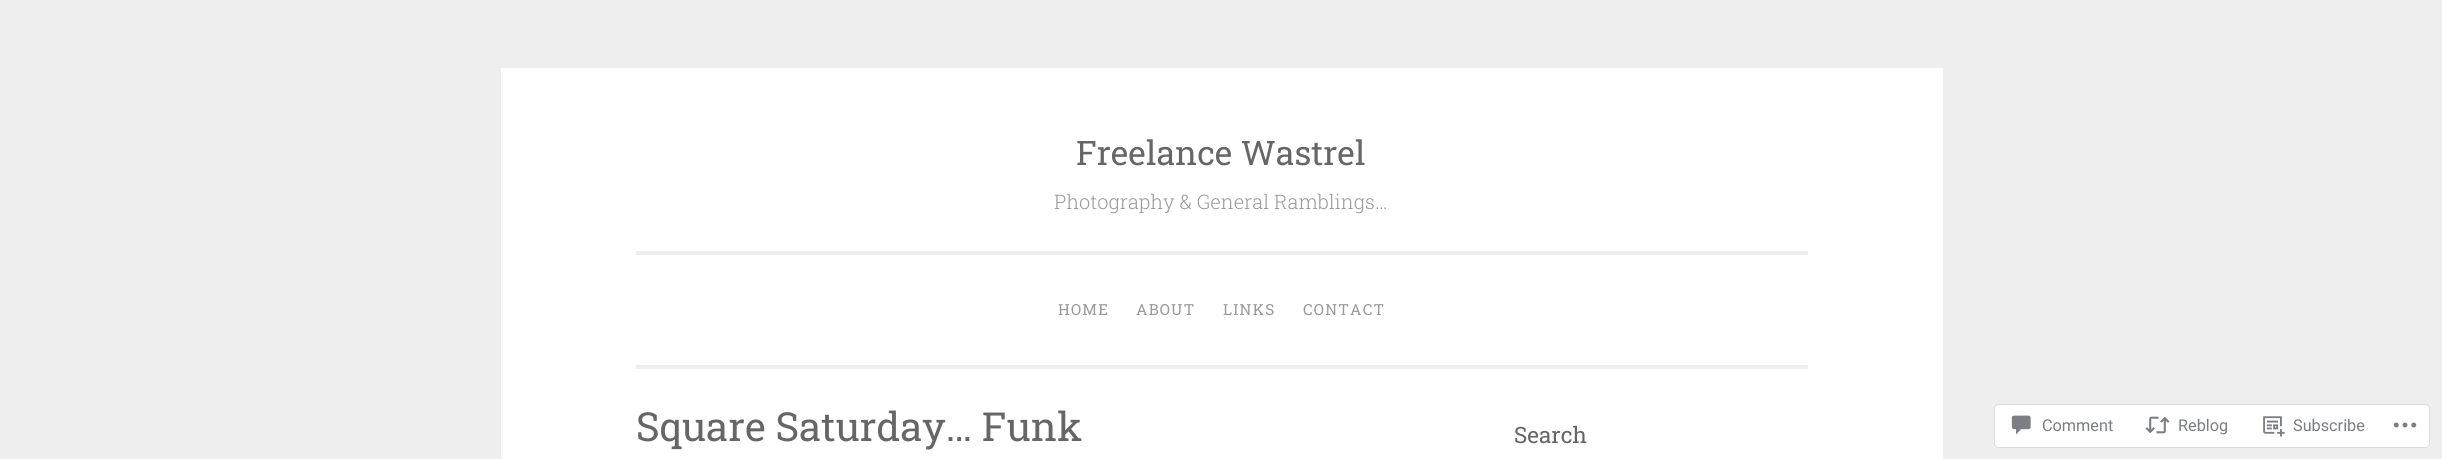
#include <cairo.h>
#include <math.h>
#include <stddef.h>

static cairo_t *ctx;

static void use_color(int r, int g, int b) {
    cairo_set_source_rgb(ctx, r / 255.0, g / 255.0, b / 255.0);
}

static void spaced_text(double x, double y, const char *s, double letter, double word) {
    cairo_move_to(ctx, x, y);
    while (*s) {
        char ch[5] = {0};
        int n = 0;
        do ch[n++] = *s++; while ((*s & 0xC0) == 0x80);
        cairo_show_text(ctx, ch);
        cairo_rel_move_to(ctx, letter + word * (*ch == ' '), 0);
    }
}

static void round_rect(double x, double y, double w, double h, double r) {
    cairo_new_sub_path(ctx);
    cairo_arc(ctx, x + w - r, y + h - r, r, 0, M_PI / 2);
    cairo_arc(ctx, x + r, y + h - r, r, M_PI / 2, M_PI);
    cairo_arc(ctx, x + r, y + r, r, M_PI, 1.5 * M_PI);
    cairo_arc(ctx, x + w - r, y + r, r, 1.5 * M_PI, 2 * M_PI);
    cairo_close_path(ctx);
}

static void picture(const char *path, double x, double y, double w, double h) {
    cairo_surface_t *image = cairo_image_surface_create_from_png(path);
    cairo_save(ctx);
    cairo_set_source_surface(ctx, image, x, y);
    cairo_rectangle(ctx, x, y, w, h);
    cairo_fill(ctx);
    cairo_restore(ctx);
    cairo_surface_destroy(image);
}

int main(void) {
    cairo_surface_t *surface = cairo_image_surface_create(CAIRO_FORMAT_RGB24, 2442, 459);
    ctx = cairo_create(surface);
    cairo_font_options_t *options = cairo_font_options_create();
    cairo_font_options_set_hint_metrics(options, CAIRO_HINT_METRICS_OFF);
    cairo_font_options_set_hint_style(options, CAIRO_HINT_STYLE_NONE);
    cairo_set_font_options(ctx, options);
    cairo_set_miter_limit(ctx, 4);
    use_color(238, 238, 238);
    cairo_paint(ctx);
    use_color(255, 255, 255);
    cairo_rectangle(ctx, 501, 68, 1442, 391);
    cairo_fill(ctx);
    use_color(238, 238, 238);
    cairo_rectangle(ctx, 636, 365, 1172, 4);
    cairo_fill(ctx);
    cairo_select_font_face(ctx, "Roboto Slab", CAIRO_FONT_SLANT_NORMAL, CAIRO_FONT_WEIGHT_NORMAL);
    cairo_set_font_size(ctx, 33.75);
    use_color(102, 102, 102);
    cairo_move_to(ctx, 1076, 165);
    cairo_show_text(ctx, "Freelance Wastrel");
    cairo_select_font_face(ctx, "Roboto Slab Light", CAIRO_FONT_SLANT_NORMAL, CAIRO_FONT_WEIGHT_NORMAL);
    cairo_set_font_size(ctx, 20);
    use_color(153, 153, 153);
    cairo_move_to(ctx, 1054, 209);
    cairo_show_text(ctx, "Photography & General Ramblings…");
    use_color(238, 238, 238);
    cairo_rectangle(ctx, 636, 251, 1172, 4);
    cairo_fill(ctx);
    cairo_select_font_face(ctx, "Roboto Slab", CAIRO_FONT_SLANT_NORMAL, CAIRO_FONT_WEIGHT_NORMAL);
    cairo_set_font_size(ctx, 15.25);
    use_color(153, 153, 153);
    spaced_text(1058, 315, "HOME", 1.25, 0);
    spaced_text(1136, 315, "ABOUT", 1.25, 0);
    spaced_text(1223, 315, "LINKS", 1.25, 0);
    spaced_text(1303, 315, "CONTACT", 1.25, 0);
    cairo_set_font_size(ctx, 40);
    use_color(102, 102, 102);
    cairo_move_to(ctx, 636, 441);
    cairo_show_text(ctx, "Square Saturday… Funk");
    cairo_set_font_size(ctx, 22.5);
    cairo_move_to(ctx, 1514, 443);
    cairo_show_text(ctx, "Search");
    use_color(255, 255, 255);
    round_rect(1994.5, 404.5, 435, 43, 3.5);
    cairo_fill_preserve(ctx);
    use_color(220, 220, 222);
    cairo_set_line_width(ctx, 1);
    cairo_stroke(ctx);
    picture("img1.png", 2011, 415, 20, 20);
    cairo_select_font_face(ctx, "Roboto", CAIRO_FONT_SLANT_NORMAL, CAIRO_FONT_WEIGHT_NORMAL);
    cairo_set_font_size(ctx, 16.25);
    use_color(122, 126, 132);
    cairo_move_to(ctx, 2042, 431);
    cairo_show_text(ctx, "Comment");
    picture("img2.png", 2145, 416, 25, 18);
    cairo_move_to(ctx, 2178, 431);
    cairo_show_text(ctx, "Reblog");
    picture("img3.png", 2263, 416, 22, 21);
    cairo_move_to(ctx, 2293, 431);
    cairo_show_text(ctx, "Subscribe");
    picture("img4.png", 2393, 422, 24, 6);
    cairo_surface_write_to_png(surface, "result.png");
    cairo_font_options_destroy(options);
    cairo_destroy(ctx);
    cairo_surface_destroy(surface);
    return 0;
}
